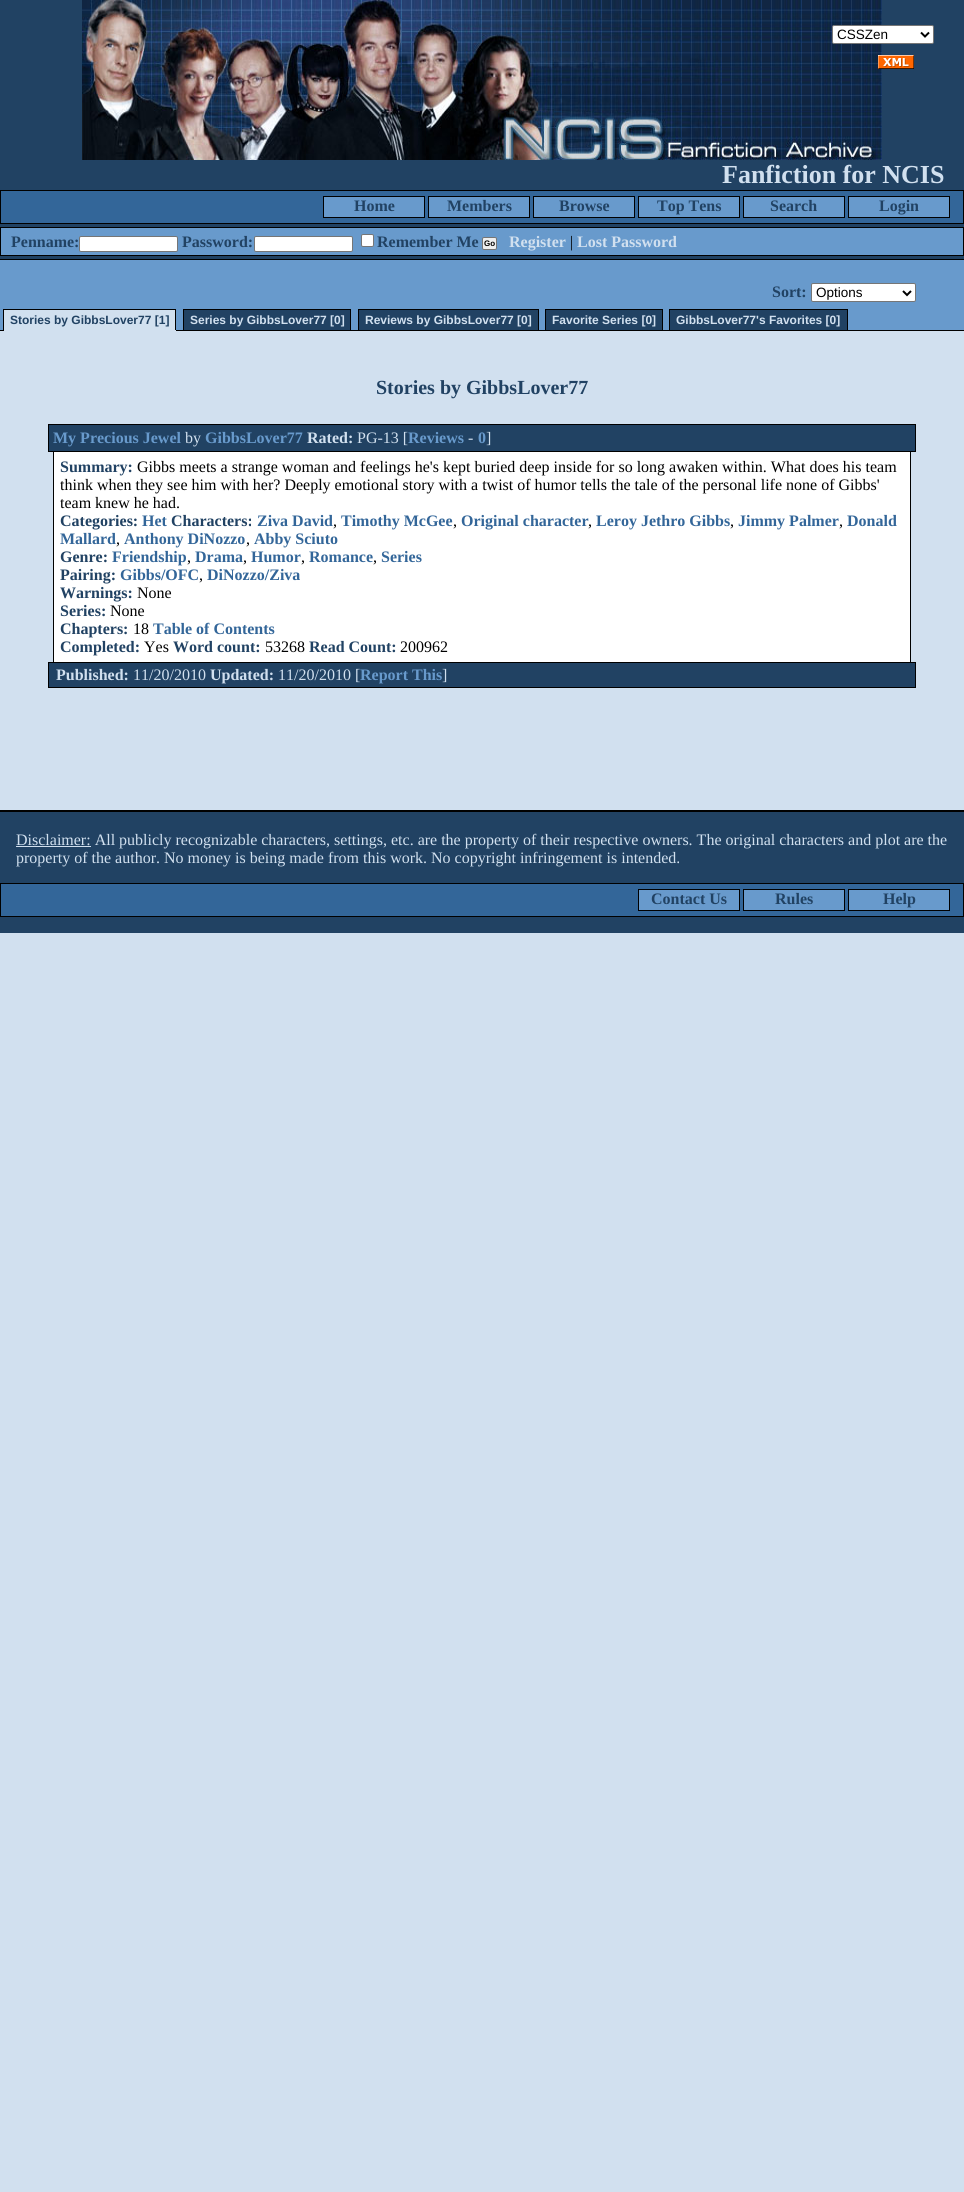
#include <cairo.h>
#include <math.h>
#include <stddef.h>

static cairo_t *ctx;

static void use_color(int r, int g, int b) {
    cairo_set_source_rgb(ctx, r / 255.0, g / 255.0, b / 255.0);
}

static void round_rect(double x, double y, double w, double h, double r) {
    cairo_new_sub_path(ctx);
    cairo_arc(ctx, x + w - r, y + h - r, r, 0, M_PI / 2);
    cairo_arc(ctx, x + r, y + h - r, r, M_PI / 2, M_PI);
    cairo_arc(ctx, x + r, y + r, r, M_PI, 1.5 * M_PI);
    cairo_arc(ctx, x + w - r, y + r, r, 1.5 * M_PI, 2 * M_PI);
    cairo_close_path(ctx);
}

static void picture(const char *path, double x, double y, double w, double h) {
    cairo_surface_t *image = cairo_image_surface_create_from_png(path);
    cairo_save(ctx);
    cairo_set_source_surface(ctx, image, x, y);
    cairo_rectangle(ctx, x, y, w, h);
    cairo_fill(ctx);
    cairo_restore(ctx);
    cairo_surface_destroy(image);
}

int main(void) {
    cairo_surface_t *surface = cairo_image_surface_create(CAIRO_FORMAT_RGB24, 964, 2192);
    ctx = cairo_create(surface);
    cairo_font_options_t *options = cairo_font_options_create();
    cairo_font_options_set_hint_metrics(options, CAIRO_HINT_METRICS_OFF);
    cairo_font_options_set_hint_style(options, CAIRO_HINT_STYLE_NONE);
    cairo_set_font_options(ctx, options);
    cairo_set_miter_limit(ctx, 4);
    use_color(209, 224, 239);
    cairo_paint(ctx);
    use_color(33, 66, 99);
    cairo_rectangle(ctx, 0, 0, 964, 259);
    cairo_fill(ctx);
    use_color(0, 0, 0);
    cairo_rectangle(ctx, 0, 259, 964, 1);
    cairo_fill(ctx);
    picture("img1.png", 82, 0, 800, 160);
    use_color(255, 255, 255);
    round_rect(832.5, 25.5, 101, 18, 1.5);
    cairo_fill_preserve(ctx);
    use_color(118, 118, 118);
    cairo_set_line_width(ctx, 1);
    cairo_stroke(ctx);
    cairo_new_path(ctx);
    cairo_move_to(ctx, 921, 32.5);
    cairo_line_to(ctx, 925, 36.5);
    cairo_line_to(ctx, 929, 32.5);
    use_color(0, 0, 0);
    cairo_set_line_width(ctx, 2);
    cairo_stroke(ctx);
    cairo_select_font_face(ctx, "Liberation Sans", CAIRO_FONT_SLANT_NORMAL, CAIRO_FONT_WEIGHT_NORMAL);
    cairo_set_font_size(ctx, 13.5);
    cairo_move_to(ctx, 837, 39);
    cairo_show_text(ctx, "CSSZen");
    picture("img2.png", 878, 55, 36, 14);
    cairo_select_font_face(ctx, "Liberation Serif", CAIRO_FONT_SLANT_NORMAL, CAIRO_FONT_WEIGHT_BOLD);
    cairo_set_font_size(ctx, 26);
    use_color(209, 224, 239);
    cairo_move_to(ctx, 722, 183);
    cairo_show_text(ctx, "Fanfiction for NCIS");
    use_color(51, 102, 153);
    cairo_rectangle(ctx, 0.5, 190.5, 963, 33);
    cairo_fill_preserve(ctx);
    use_color(0, 0, 0);
    cairo_set_line_width(ctx, 1);
    cairo_stroke(ctx);
    use_color(104, 154, 204);
    cairo_rectangle(ctx, 323.5, 196.5, 101, 21);
    cairo_fill_preserve(ctx);
    use_color(0, 0, 0);
    cairo_stroke(ctx);
    cairo_set_font_size(ctx, 16);
    use_color(33, 66, 99);
    cairo_move_to(ctx, 354, 211);
    cairo_show_text(ctx, "Home");
    use_color(104, 154, 204);
    cairo_rectangle(ctx, 428.5, 196.5, 101, 21);
    cairo_fill_preserve(ctx);
    use_color(0, 0, 0);
    cairo_stroke(ctx);
    use_color(33, 66, 99);
    cairo_move_to(ctx, 447, 211);
    cairo_show_text(ctx, "Members");
    use_color(104, 154, 204);
    cairo_rectangle(ctx, 533.5, 196.5, 101, 21);
    cairo_fill_preserve(ctx);
    use_color(0, 0, 0);
    cairo_stroke(ctx);
    use_color(33, 66, 99);
    cairo_move_to(ctx, 559, 211);
    cairo_show_text(ctx, "Browse");
    use_color(104, 154, 204);
    cairo_rectangle(ctx, 638.5, 196.5, 101, 21);
    cairo_fill_preserve(ctx);
    use_color(0, 0, 0);
    cairo_stroke(ctx);
    use_color(33, 66, 99);
    cairo_move_to(ctx, 657, 211);
    cairo_show_text(ctx, "Top Tens");
    use_color(104, 154, 204);
    cairo_rectangle(ctx, 743.5, 196.5, 101, 21);
    cairo_fill_preserve(ctx);
    use_color(0, 0, 0);
    cairo_stroke(ctx);
    use_color(33, 66, 99);
    cairo_move_to(ctx, 770, 211);
    cairo_show_text(ctx, "Search");
    use_color(104, 154, 204);
    cairo_rectangle(ctx, 848.5, 196.5, 101, 21);
    cairo_fill_preserve(ctx);
    use_color(0, 0, 0);
    cairo_stroke(ctx);
    use_color(33, 66, 99);
    cairo_move_to(ctx, 879, 211);
    cairo_show_text(ctx, "Login");
    use_color(104, 154, 204);
    cairo_rectangle(ctx, 0.5, 227.5, 963, 28);
    cairo_fill_preserve(ctx);
    use_color(0, 0, 0);
    cairo_stroke(ctx);
    use_color(33, 66, 99);
    cairo_move_to(ctx, 11, 247);
    cairo_show_text(ctx, "Penname:");
    use_color(255, 255, 255);
    round_rect(79.5, 236.5, 98, 15, 1.5);
    cairo_fill_preserve(ctx);
    use_color(118, 118, 118);
    cairo_stroke(ctx);
    use_color(33, 66, 99);
    cairo_move_to(ctx, 182, 247);
    cairo_show_text(ctx, "Password:");
    use_color(255, 255, 255);
    round_rect(254.5, 236.5, 98, 15, 1.5);
    cairo_fill_preserve(ctx);
    use_color(118, 118, 118);
    cairo_stroke(ctx);
    use_color(255, 255, 255);
    round_rect(361.5, 234.5, 12, 12, 1.5);
    cairo_fill_preserve(ctx);
    use_color(118, 118, 118);
    cairo_stroke(ctx);
    use_color(33, 66, 99);
    cairo_move_to(ctx, 377, 247);
    cairo_show_text(ctx, "Remember Me");
    use_color(239, 239, 239);
    round_rect(482.5, 237.5, 14, 12, 1.5);
    cairo_fill_preserve(ctx);
    use_color(118, 118, 118);
    cairo_stroke(ctx);
    cairo_select_font_face(ctx, "Liberation Sans", CAIRO_FONT_SLANT_NORMAL, CAIRO_FONT_WEIGHT_BOLD);
    cairo_set_font_size(ctx, 8);
    use_color(0, 0, 0);
    cairo_move_to(ctx, 484, 246);
    cairo_show_text(ctx, "Go");
    cairo_select_font_face(ctx, "Liberation Serif", CAIRO_FONT_SLANT_NORMAL, CAIRO_FONT_WEIGHT_BOLD);
    cairo_set_font_size(ctx, 16);
    use_color(209, 224, 239);
    cairo_move_to(ctx, 509, 247);
    cairo_show_text(ctx, "Register");
    cairo_select_font_face(ctx, "Liberation Serif", CAIRO_FONT_SLANT_NORMAL, CAIRO_FONT_WEIGHT_NORMAL);
    use_color(0, 0, 0);
    cairo_move_to(ctx, 570, 247);
    cairo_show_text(ctx, "|");
    cairo_select_font_face(ctx, "Liberation Serif", CAIRO_FONT_SLANT_NORMAL, CAIRO_FONT_WEIGHT_BOLD);
    use_color(209, 224, 239);
    cairo_move_to(ctx, 577, 247);
    cairo_show_text(ctx, "Lost Password");
    use_color(104, 154, 204);
    cairo_rectangle(ctx, 0, 260, 964, 70);
    cairo_fill(ctx);
    use_color(33, 66, 99);
    cairo_move_to(ctx, 772, 297);
    cairo_show_text(ctx, "Sort:");
    use_color(255, 255, 255);
    round_rect(811.5, 283.5, 104, 18, 1.5);
    cairo_fill_preserve(ctx);
    use_color(118, 118, 118);
    cairo_stroke(ctx);
    cairo_new_path(ctx);
    cairo_move_to(ctx, 903, 291);
    cairo_line_to(ctx, 907, 295);
    cairo_line_to(ctx, 911, 291);
    use_color(0, 0, 0);
    cairo_set_line_width(ctx, 2);
    cairo_stroke(ctx);
    cairo_select_font_face(ctx, "Liberation Sans", CAIRO_FONT_SLANT_NORMAL, CAIRO_FONT_WEIGHT_NORMAL);
    cairo_set_font_size(ctx, 13.5);
    cairo_move_to(ctx, 816, 297);
    cairo_show_text(ctx, "Options");
    cairo_rectangle(ctx, 0, 330, 964, 1);
    cairo_fill(ctx);
    use_color(209, 224, 239);
    cairo_rectangle(ctx, 4, 310, 171, 20);
    cairo_fill(ctx);
    cairo_select_font_face(ctx, "Liberation Sans", CAIRO_FONT_SLANT_NORMAL, CAIRO_FONT_WEIGHT_BOLD);
    cairo_set_font_size(ctx, 12);
    use_color(33, 66, 99);
    cairo_move_to(ctx, 10, 324);
    cairo_show_text(ctx, "Stories by GibbsLover77 [1]");
    use_color(0, 0, 0);
    cairo_rectangle(ctx, 3, 309, 173, 1);
    cairo_fill(ctx);
    cairo_rectangle(ctx, 175, 309, 1, 22);
    cairo_fill(ctx);
    use_color(209, 224, 239);
    cairo_rectangle(ctx, 3, 330, 173, 1);
    cairo_fill(ctx);
    use_color(0, 0, 0);
    cairo_rectangle(ctx, 3, 309, 1, 22);
    cairo_fill(ctx);
    use_color(33, 66, 99);
    cairo_rectangle(ctx, 184, 310, 166, 20);
    cairo_fill(ctx);
    use_color(209, 224, 239);
    cairo_move_to(ctx, 190, 324);
    cairo_show_text(ctx, "Series by GibbsLover77 [0]");
    use_color(0, 0, 0);
    cairo_rectangle(ctx, 183, 309, 168, 1);
    cairo_fill(ctx);
    cairo_rectangle(ctx, 350, 309, 1, 21);
    cairo_fill(ctx);
    cairo_rectangle(ctx, 183, 309, 1, 21);
    cairo_fill(ctx);
    use_color(33, 66, 99);
    cairo_rectangle(ctx, 359, 310, 179, 20);
    cairo_fill(ctx);
    use_color(209, 224, 239);
    cairo_move_to(ctx, 365, 324);
    cairo_show_text(ctx, "Reviews by GibbsLover77 [0]");
    use_color(0, 0, 0);
    cairo_rectangle(ctx, 358, 309, 181, 1);
    cairo_fill(ctx);
    cairo_rectangle(ctx, 538, 309, 1, 21);
    cairo_fill(ctx);
    cairo_rectangle(ctx, 358, 309, 1, 21);
    cairo_fill(ctx);
    use_color(33, 66, 99);
    cairo_rectangle(ctx, 546, 310, 116, 20);
    cairo_fill(ctx);
    use_color(209, 224, 239);
    cairo_move_to(ctx, 552, 324);
    cairo_show_text(ctx, "Favorite Series [0]");
    use_color(0, 0, 0);
    cairo_rectangle(ctx, 545, 309, 118, 1);
    cairo_fill(ctx);
    cairo_rectangle(ctx, 662, 309, 1, 21);
    cairo_fill(ctx);
    cairo_rectangle(ctx, 545, 309, 1, 21);
    cairo_fill(ctx);
    use_color(33, 66, 99);
    cairo_rectangle(ctx, 670, 310, 177, 20);
    cairo_fill(ctx);
    use_color(209, 224, 239);
    cairo_move_to(ctx, 676, 324);
    cairo_show_text(ctx, "GibbsLover77's Favorites [0]");
    use_color(0, 0, 0);
    cairo_rectangle(ctx, 669, 309, 179, 1);
    cairo_fill(ctx);
    cairo_rectangle(ctx, 847, 309, 1, 21);
    cairo_fill(ctx);
    cairo_rectangle(ctx, 669, 309, 1, 21);
    cairo_fill(ctx);
    cairo_select_font_face(ctx, "Liberation Serif", CAIRO_FONT_SLANT_NORMAL, CAIRO_FONT_WEIGHT_BOLD);
    cairo_set_font_size(ctx, 20);
    use_color(33, 66, 99);
    cairo_move_to(ctx, 376, 394);
    cairo_show_text(ctx, "Stories by GibbsLover77");
    cairo_rectangle(ctx, 48.5, 424.5, 867, 27);
    cairo_fill_preserve(ctx);
    use_color(0, 0, 0);
    cairo_set_line_width(ctx, 1);
    cairo_stroke(ctx);
    cairo_set_font_size(ctx, 16);
    use_color(104, 154, 204);
    cairo_move_to(ctx, 53, 443);
    cairo_show_text(ctx, "My Precious Jewel");
    cairo_select_font_face(ctx, "Liberation Serif", CAIRO_FONT_SLANT_NORMAL, CAIRO_FONT_WEIGHT_NORMAL);
    use_color(209, 224, 239);
    cairo_move_to(ctx, 185, 443);
    cairo_show_text(ctx, "by");
    cairo_select_font_face(ctx, "Liberation Serif", CAIRO_FONT_SLANT_NORMAL, CAIRO_FONT_WEIGHT_BOLD);
    use_color(104, 154, 204);
    cairo_move_to(ctx, 205, 443);
    cairo_show_text(ctx, "GibbsLover77");
    use_color(209, 224, 239);
    cairo_move_to(ctx, 307, 443);
    cairo_show_text(ctx, "Rated:");
    cairo_select_font_face(ctx, "Liberation Serif", CAIRO_FONT_SLANT_NORMAL, CAIRO_FONT_WEIGHT_NORMAL);
    cairo_move_to(ctx, 357, 443);
    cairo_show_text(ctx, "PG-13 [");
    cairo_select_font_face(ctx, "Liberation Serif", CAIRO_FONT_SLANT_NORMAL, CAIRO_FONT_WEIGHT_BOLD);
    use_color(104, 154, 204);
    cairo_move_to(ctx, 408, 443);
    cairo_show_text(ctx, "Reviews");
    cairo_select_font_face(ctx, "Liberation Serif", CAIRO_FONT_SLANT_NORMAL, CAIRO_FONT_WEIGHT_NORMAL);
    use_color(209, 224, 239);
    cairo_move_to(ctx, 468, 443);
    cairo_show_text(ctx, "-");
    cairo_select_font_face(ctx, "Liberation Serif", CAIRO_FONT_SLANT_NORMAL, CAIRO_FONT_WEIGHT_BOLD);
    use_color(104, 154, 204);
    cairo_move_to(ctx, 478, 443);
    cairo_show_text(ctx, "0");
    cairo_select_font_face(ctx, "Liberation Serif", CAIRO_FONT_SLANT_NORMAL, CAIRO_FONT_WEIGHT_NORMAL);
    use_color(209, 224, 239);
    cairo_move_to(ctx, 486, 443);
    cairo_show_text(ctx, "]");
    use_color(255, 255, 255);
    cairo_rectangle(ctx, 54, 452, 856, 210);
    cairo_fill(ctx);
    use_color(0, 0, 0);
    cairo_rectangle(ctx, 910, 452, 1, 210);
    cairo_fill(ctx);
    cairo_rectangle(ctx, 53, 452, 1, 210);
    cairo_fill(ctx);
    cairo_select_font_face(ctx, "Liberation Serif", CAIRO_FONT_SLANT_NORMAL, CAIRO_FONT_WEIGHT_BOLD);
    use_color(33, 66, 99);
    cairo_move_to(ctx, 60, 472);
    cairo_show_text(ctx, "Summary:");
    cairo_select_font_face(ctx, "Liberation Serif", CAIRO_FONT_SLANT_NORMAL, CAIRO_FONT_WEIGHT_NORMAL);
    use_color(0, 0, 0);
    cairo_move_to(ctx, 137, 472);
    cairo_show_text(ctx, "Gibbs meets a strange woman and feelings he's kept buried deep inside for so long awaken within. What does his team");
    cairo_move_to(ctx, 60, 490);
    cairo_show_text(ctx, "think when they see him with her? Deeply emotional story with a twist of humor tells the tale of the personal life none of Gibbs'");
    cairo_move_to(ctx, 60, 508);
    cairo_show_text(ctx, "team knew he had.");
    cairo_select_font_face(ctx, "Liberation Serif", CAIRO_FONT_SLANT_NORMAL, CAIRO_FONT_WEIGHT_BOLD);
    use_color(33, 66, 99);
    cairo_move_to(ctx, 60, 526);
    cairo_show_text(ctx, "Categories:");
    use_color(51, 102, 153);
    cairo_move_to(ctx, 142, 526);
    cairo_show_text(ctx, "Het");
    use_color(33, 66, 99);
    cairo_move_to(ctx, 171, 526);
    cairo_show_text(ctx, "Characters:");
    use_color(51, 102, 153);
    cairo_move_to(ctx, 257, 526);
    cairo_show_text(ctx, "Ziva David");
    cairo_select_font_face(ctx, "Liberation Serif", CAIRO_FONT_SLANT_NORMAL, CAIRO_FONT_WEIGHT_NORMAL);
    use_color(0, 0, 0);
    cairo_move_to(ctx, 333, 526);
    cairo_show_text(ctx, ",");
    cairo_select_font_face(ctx, "Liberation Serif", CAIRO_FONT_SLANT_NORMAL, CAIRO_FONT_WEIGHT_BOLD);
    use_color(51, 102, 153);
    cairo_move_to(ctx, 341, 526);
    cairo_show_text(ctx, "Timothy McGee");
    cairo_select_font_face(ctx, "Liberation Serif", CAIRO_FONT_SLANT_NORMAL, CAIRO_FONT_WEIGHT_NORMAL);
    use_color(0, 0, 0);
    cairo_move_to(ctx, 453, 526);
    cairo_show_text(ctx, ",");
    cairo_select_font_face(ctx, "Liberation Serif", CAIRO_FONT_SLANT_NORMAL, CAIRO_FONT_WEIGHT_BOLD);
    use_color(51, 102, 153);
    cairo_move_to(ctx, 461, 526);
    cairo_show_text(ctx, "Original character");
    cairo_select_font_face(ctx, "Liberation Serif", CAIRO_FONT_SLANT_NORMAL, CAIRO_FONT_WEIGHT_NORMAL);
    use_color(0, 0, 0);
    cairo_move_to(ctx, 588, 526);
    cairo_show_text(ctx, ",");
    cairo_select_font_face(ctx, "Liberation Serif", CAIRO_FONT_SLANT_NORMAL, CAIRO_FONT_WEIGHT_BOLD);
    use_color(51, 102, 153);
    cairo_move_to(ctx, 596, 526);
    cairo_show_text(ctx, "Leroy Jethro Gibbs");
    cairo_select_font_face(ctx, "Liberation Serif", CAIRO_FONT_SLANT_NORMAL, CAIRO_FONT_WEIGHT_NORMAL);
    use_color(0, 0, 0);
    cairo_move_to(ctx, 730, 526);
    cairo_show_text(ctx, ",");
    cairo_select_font_face(ctx, "Liberation Serif", CAIRO_FONT_SLANT_NORMAL, CAIRO_FONT_WEIGHT_BOLD);
    use_color(51, 102, 153);
    cairo_move_to(ctx, 738, 526);
    cairo_show_text(ctx, "Jimmy Palmer");
    cairo_select_font_face(ctx, "Liberation Serif", CAIRO_FONT_SLANT_NORMAL, CAIRO_FONT_WEIGHT_NORMAL);
    use_color(0, 0, 0);
    cairo_move_to(ctx, 839, 526);
    cairo_show_text(ctx, ",");
    cairo_select_font_face(ctx, "Liberation Serif", CAIRO_FONT_SLANT_NORMAL, CAIRO_FONT_WEIGHT_BOLD);
    use_color(51, 102, 153);
    cairo_move_to(ctx, 847, 526);
    cairo_show_text(ctx, "Donald");
    cairo_move_to(ctx, 60, 544);
    cairo_show_text(ctx, "Mallard");
    cairo_select_font_face(ctx, "Liberation Serif", CAIRO_FONT_SLANT_NORMAL, CAIRO_FONT_WEIGHT_NORMAL);
    use_color(0, 0, 0);
    cairo_move_to(ctx, 116, 544);
    cairo_show_text(ctx, ",");
    cairo_select_font_face(ctx, "Liberation Serif", CAIRO_FONT_SLANT_NORMAL, CAIRO_FONT_WEIGHT_BOLD);
    use_color(51, 102, 153);
    cairo_move_to(ctx, 124, 544);
    cairo_show_text(ctx, "Anthony DiNozzo");
    cairo_select_font_face(ctx, "Liberation Serif", CAIRO_FONT_SLANT_NORMAL, CAIRO_FONT_WEIGHT_NORMAL);
    use_color(0, 0, 0);
    cairo_move_to(ctx, 246, 544);
    cairo_show_text(ctx, ",");
    cairo_select_font_face(ctx, "Liberation Serif", CAIRO_FONT_SLANT_NORMAL, CAIRO_FONT_WEIGHT_BOLD);
    use_color(51, 102, 153);
    cairo_move_to(ctx, 254, 544);
    cairo_show_text(ctx, "Abby Sciuto");
    use_color(33, 66, 99);
    cairo_move_to(ctx, 60, 562);
    cairo_show_text(ctx, "Genre:");
    use_color(51, 102, 153);
    cairo_move_to(ctx, 112, 562);
    cairo_show_text(ctx, "Friendship");
    cairo_select_font_face(ctx, "Liberation Serif", CAIRO_FONT_SLANT_NORMAL, CAIRO_FONT_WEIGHT_NORMAL);
    use_color(0, 0, 0);
    cairo_move_to(ctx, 187, 562);
    cairo_show_text(ctx, ",");
    cairo_select_font_face(ctx, "Liberation Serif", CAIRO_FONT_SLANT_NORMAL, CAIRO_FONT_WEIGHT_BOLD);
    use_color(51, 102, 153);
    cairo_move_to(ctx, 195, 562);
    cairo_show_text(ctx, "Drama");
    cairo_select_font_face(ctx, "Liberation Serif", CAIRO_FONT_SLANT_NORMAL, CAIRO_FONT_WEIGHT_NORMAL);
    use_color(0, 0, 0);
    cairo_move_to(ctx, 243, 562);
    cairo_show_text(ctx, ",");
    cairo_select_font_face(ctx, "Liberation Serif", CAIRO_FONT_SLANT_NORMAL, CAIRO_FONT_WEIGHT_BOLD);
    use_color(51, 102, 153);
    cairo_move_to(ctx, 251, 562);
    cairo_show_text(ctx, "Humor");
    cairo_select_font_face(ctx, "Liberation Serif", CAIRO_FONT_SLANT_NORMAL, CAIRO_FONT_WEIGHT_NORMAL);
    use_color(0, 0, 0);
    cairo_move_to(ctx, 301, 562);
    cairo_show_text(ctx, ",");
    cairo_select_font_face(ctx, "Liberation Serif", CAIRO_FONT_SLANT_NORMAL, CAIRO_FONT_WEIGHT_BOLD);
    use_color(51, 102, 153);
    cairo_move_to(ctx, 309, 562);
    cairo_show_text(ctx, "Romance");
    cairo_select_font_face(ctx, "Liberation Serif", CAIRO_FONT_SLANT_NORMAL, CAIRO_FONT_WEIGHT_NORMAL);
    use_color(0, 0, 0);
    cairo_move_to(ctx, 373, 562);
    cairo_show_text(ctx, ",");
    cairo_select_font_face(ctx, "Liberation Serif", CAIRO_FONT_SLANT_NORMAL, CAIRO_FONT_WEIGHT_BOLD);
    use_color(51, 102, 153);
    cairo_move_to(ctx, 381, 562);
    cairo_show_text(ctx, "Series");
    use_color(33, 66, 99);
    cairo_move_to(ctx, 60, 580);
    cairo_show_text(ctx, "Pairing:");
    use_color(51, 102, 153);
    cairo_move_to(ctx, 120, 580);
    cairo_show_text(ctx, "Gibbs/OFC");
    cairo_select_font_face(ctx, "Liberation Serif", CAIRO_FONT_SLANT_NORMAL, CAIRO_FONT_WEIGHT_NORMAL);
    use_color(0, 0, 0);
    cairo_move_to(ctx, 199, 580);
    cairo_show_text(ctx, ",");
    cairo_select_font_face(ctx, "Liberation Serif", CAIRO_FONT_SLANT_NORMAL, CAIRO_FONT_WEIGHT_BOLD);
    use_color(51, 102, 153);
    cairo_move_to(ctx, 207, 580);
    cairo_show_text(ctx, "DiNozzo/Ziva");
    use_color(33, 66, 99);
    cairo_move_to(ctx, 60, 598);
    cairo_show_text(ctx, "Warnings:");
    cairo_select_font_face(ctx, "Liberation Serif", CAIRO_FONT_SLANT_NORMAL, CAIRO_FONT_WEIGHT_NORMAL);
    use_color(0, 0, 0);
    cairo_move_to(ctx, 137, 598);
    cairo_show_text(ctx, "None");
    cairo_select_font_face(ctx, "Liberation Serif", CAIRO_FONT_SLANT_NORMAL, CAIRO_FONT_WEIGHT_BOLD);
    use_color(33, 66, 99);
    cairo_move_to(ctx, 60, 616);
    cairo_show_text(ctx, "Series:");
    cairo_select_font_face(ctx, "Liberation Serif", CAIRO_FONT_SLANT_NORMAL, CAIRO_FONT_WEIGHT_NORMAL);
    use_color(0, 0, 0);
    cairo_move_to(ctx, 110, 616);
    cairo_show_text(ctx, "None");
    cairo_select_font_face(ctx, "Liberation Serif", CAIRO_FONT_SLANT_NORMAL, CAIRO_FONT_WEIGHT_BOLD);
    use_color(33, 66, 99);
    cairo_move_to(ctx, 60, 634);
    cairo_show_text(ctx, "Chapters:");
    cairo_select_font_face(ctx, "Liberation Serif", CAIRO_FONT_SLANT_NORMAL, CAIRO_FONT_WEIGHT_NORMAL);
    use_color(0, 0, 0);
    cairo_move_to(ctx, 133, 634);
    cairo_show_text(ctx, "18");
    cairo_select_font_face(ctx, "Liberation Serif", CAIRO_FONT_SLANT_NORMAL, CAIRO_FONT_WEIGHT_BOLD);
    use_color(51, 102, 153);
    cairo_move_to(ctx, 153, 634);
    cairo_show_text(ctx, "Table of Contents");
    use_color(33, 66, 99);
    cairo_move_to(ctx, 60, 652);
    cairo_show_text(ctx, "Completed:");
    cairo_select_font_face(ctx, "Liberation Serif", CAIRO_FONT_SLANT_NORMAL, CAIRO_FONT_WEIGHT_NORMAL);
    use_color(0, 0, 0);
    cairo_move_to(ctx, 144, 652);
    cairo_show_text(ctx, "Yes");
    cairo_select_font_face(ctx, "Liberation Serif", CAIRO_FONT_SLANT_NORMAL, CAIRO_FONT_WEIGHT_BOLD);
    use_color(33, 66, 99);
    cairo_move_to(ctx, 173, 652);
    cairo_show_text(ctx, "Word count:");
    cairo_select_font_face(ctx, "Liberation Serif", CAIRO_FONT_SLANT_NORMAL, CAIRO_FONT_WEIGHT_NORMAL);
    use_color(0, 0, 0);
    cairo_move_to(ctx, 265, 652);
    cairo_show_text(ctx, "53268");
    cairo_select_font_face(ctx, "Liberation Serif", CAIRO_FONT_SLANT_NORMAL, CAIRO_FONT_WEIGHT_BOLD);
    use_color(33, 66, 99);
    cairo_move_to(ctx, 309, 652);
    cairo_show_text(ctx, "Read Count:");
    cairo_select_font_face(ctx, "Liberation Serif", CAIRO_FONT_SLANT_NORMAL, CAIRO_FONT_WEIGHT_NORMAL);
    use_color(0, 0, 0);
    cairo_move_to(ctx, 400, 652);
    cairo_show_text(ctx, "200962");
    use_color(33, 66, 99);
    cairo_rectangle(ctx, 48.5, 662.5, 867, 25);
    cairo_fill_preserve(ctx);
    use_color(0, 0, 0);
    cairo_stroke(ctx);
    cairo_select_font_face(ctx, "Liberation Serif", CAIRO_FONT_SLANT_NORMAL, CAIRO_FONT_WEIGHT_BOLD);
    use_color(209, 224, 239);
    cairo_move_to(ctx, 56, 680);
    cairo_show_text(ctx, "Published:");
    cairo_select_font_face(ctx, "Liberation Serif", CAIRO_FONT_SLANT_NORMAL, CAIRO_FONT_WEIGHT_NORMAL);
    cairo_move_to(ctx, 133, 680);
    cairo_show_text(ctx, "11/20/2010");
    cairo_select_font_face(ctx, "Liberation Serif", CAIRO_FONT_SLANT_NORMAL, CAIRO_FONT_WEIGHT_BOLD);
    cairo_move_to(ctx, 210, 680);
    cairo_show_text(ctx, "Updated:");
    cairo_select_font_face(ctx, "Liberation Serif", CAIRO_FONT_SLANT_NORMAL, CAIRO_FONT_WEIGHT_NORMAL);
    cairo_move_to(ctx, 278, 680);
    cairo_show_text(ctx, "11/20/2010 [");
    cairo_select_font_face(ctx, "Liberation Serif", CAIRO_FONT_SLANT_NORMAL, CAIRO_FONT_WEIGHT_BOLD);
    use_color(104, 154, 204);
    cairo_move_to(ctx, 360, 680);
    cairo_show_text(ctx, "Report This");
    cairo_select_font_face(ctx, "Liberation Serif", CAIRO_FONT_SLANT_NORMAL, CAIRO_FONT_WEIGHT_NORMAL);
    use_color(209, 224, 239);
    cairo_move_to(ctx, 442, 680);
    cairo_show_text(ctx, "]");
    use_color(33, 66, 99);
    cairo_rectangle(ctx, 0, 812, 964, 121);
    cairo_fill(ctx);
    use_color(0, 0, 0);
    cairo_rectangle(ctx, 0, 810, 964, 2);
    cairo_fill(ctx);
    use_color(209, 224, 239);
    cairo_rectangle(ctx, 16, 846, 75, 1);
    cairo_fill(ctx);
    cairo_move_to(ctx, 16, 845);
    cairo_show_text(ctx, "Disclaimer: All publicly recognizable characters, settings, etc. are the property of their respective owners. The original characters and plot are the");
    cairo_move_to(ctx, 16, 863);
    cairo_show_text(ctx, "property of the author. No money is being made from this work. No copyright infringement is intended.");
    use_color(51, 102, 153);
    cairo_rectangle(ctx, 0.5, 883.5, 963, 33);
    cairo_fill_preserve(ctx);
    use_color(0, 0, 0);
    cairo_stroke(ctx);
    use_color(104, 154, 204);
    cairo_rectangle(ctx, 638.5, 889.5, 101, 21);
    cairo_fill_preserve(ctx);
    use_color(0, 0, 0);
    cairo_stroke(ctx);
    cairo_select_font_face(ctx, "Liberation Serif", CAIRO_FONT_SLANT_NORMAL, CAIRO_FONT_WEIGHT_BOLD);
    use_color(33, 66, 99);
    cairo_move_to(ctx, 651, 904);
    cairo_show_text(ctx, "Contact Us");
    use_color(104, 154, 204);
    cairo_rectangle(ctx, 743.5, 889.5, 101, 21);
    cairo_fill_preserve(ctx);
    use_color(0, 0, 0);
    cairo_stroke(ctx);
    use_color(33, 66, 99);
    cairo_move_to(ctx, 775, 904);
    cairo_show_text(ctx, "Rules");
    use_color(104, 154, 204);
    cairo_rectangle(ctx, 848.5, 889.5, 101, 21);
    cairo_fill_preserve(ctx);
    use_color(0, 0, 0);
    cairo_stroke(ctx);
    use_color(33, 66, 99);
    cairo_move_to(ctx, 883, 904);
    cairo_show_text(ctx, "Help");
    cairo_surface_write_to_png(surface, "result.png");
    cairo_font_options_destroy(options);
    cairo_destroy(ctx);
    cairo_surface_destroy(surface);
    return 0;
}
